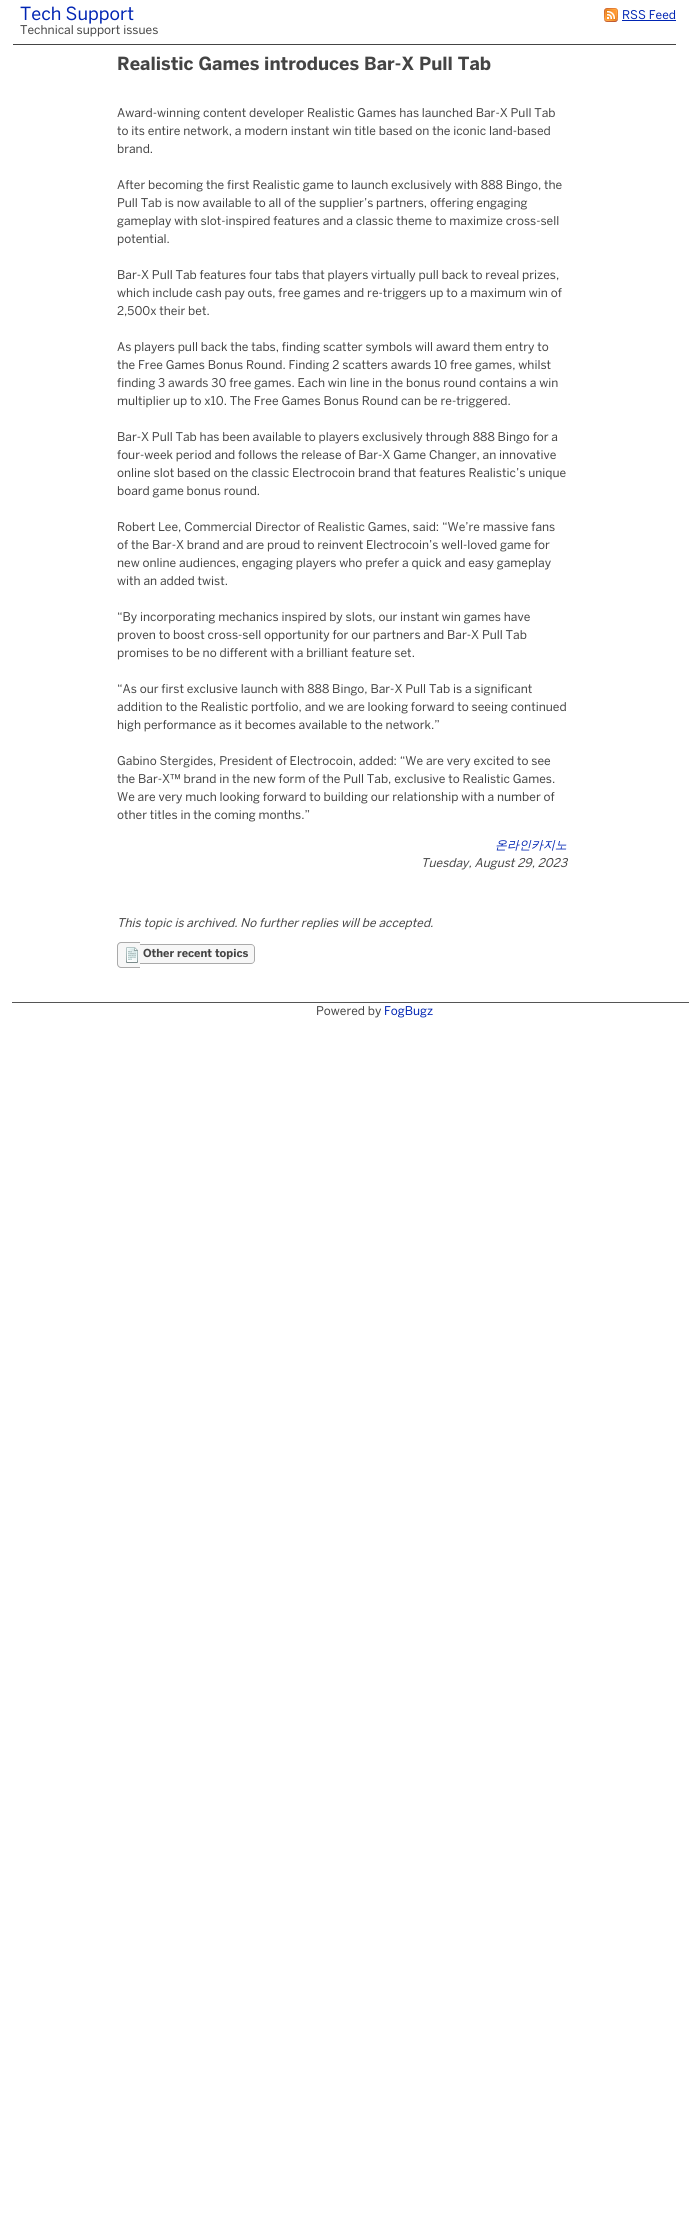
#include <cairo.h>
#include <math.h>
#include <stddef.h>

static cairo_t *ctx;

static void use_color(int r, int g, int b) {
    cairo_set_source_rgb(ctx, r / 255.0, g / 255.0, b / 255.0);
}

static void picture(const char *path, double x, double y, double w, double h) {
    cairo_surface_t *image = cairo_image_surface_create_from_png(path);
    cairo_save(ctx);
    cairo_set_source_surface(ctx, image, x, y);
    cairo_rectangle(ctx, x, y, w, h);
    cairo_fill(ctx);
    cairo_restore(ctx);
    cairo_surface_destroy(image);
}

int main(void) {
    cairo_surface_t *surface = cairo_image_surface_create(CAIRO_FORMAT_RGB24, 689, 2230);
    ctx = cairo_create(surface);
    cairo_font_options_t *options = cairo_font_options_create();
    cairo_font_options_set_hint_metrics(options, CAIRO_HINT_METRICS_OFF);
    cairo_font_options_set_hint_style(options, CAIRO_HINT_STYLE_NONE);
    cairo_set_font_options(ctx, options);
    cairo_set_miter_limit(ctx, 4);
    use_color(255, 255, 255);
    cairo_paint(ctx);
    cairo_select_font_face(ctx, "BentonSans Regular", CAIRO_FONT_SLANT_NORMAL, CAIRO_FONT_WEIGHT_NORMAL);
    cairo_set_font_size(ctx, 18);
    use_color(0, 36, 179);
    cairo_move_to(ctx, 20, 20);
    cairo_show_text(ctx, "Tech Support");
    picture("img1.png", 604, 8, 14, 14);
    cairo_set_font_size(ctx, 12);
    cairo_move_to(ctx, 622, 19);
    cairo_show_text(ctx, "RSS Feed");
    cairo_rectangle(ctx, 622, 20, 54, 1);
    cairo_fill(ctx);
    use_color(68, 68, 68);
    cairo_rectangle(ctx, 13, 44, 663, 1);
    cairo_fill(ctx);
    cairo_move_to(ctx, 20, 34);
    cairo_show_text(ctx, "Technical support issues");
    cairo_select_font_face(ctx, "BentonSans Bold", CAIRO_FONT_SLANT_NORMAL, CAIRO_FONT_WEIGHT_BOLD);
    cairo_set_font_size(ctx, 18);
    cairo_move_to(ctx, 117, 70);
    cairo_show_text(ctx, "Realistic Games introduces Bar-X Pull Tab");
    cairo_select_font_face(ctx, "BentonSans Regular", CAIRO_FONT_SLANT_NORMAL, CAIRO_FONT_WEIGHT_NORMAL);
    cairo_set_font_size(ctx, 12);
    cairo_move_to(ctx, 117, 117);
    cairo_show_text(ctx, "Award-winning content developer Realistic Games has launched Bar-X Pull Tab");
    cairo_move_to(ctx, 117, 135);
    cairo_show_text(ctx, "to its entire network, a modern instant win title based on the iconic land-based");
    cairo_move_to(ctx, 117, 153);
    cairo_show_text(ctx, "brand.");
    cairo_move_to(ctx, 117, 189);
    cairo_show_text(ctx, "After becoming the first Realistic game to launch exclusively with 888 Bingo, the");
    cairo_move_to(ctx, 117, 207);
    cairo_show_text(ctx, "Pull Tab is now available to all of the supplier’s partners, offering engaging");
    cairo_move_to(ctx, 117, 225);
    cairo_show_text(ctx, "gameplay with slot-inspired features and a classic theme to maximize cross-sell");
    cairo_move_to(ctx, 117, 243);
    cairo_show_text(ctx, "potential.");
    cairo_move_to(ctx, 117, 279);
    cairo_show_text(ctx, "Bar-X Pull Tab features four tabs that players virtually pull back to reveal prizes,");
    cairo_move_to(ctx, 117, 297);
    cairo_show_text(ctx, "which include cash pay outs, free games and re-triggers up to a maximum win of");
    cairo_move_to(ctx, 117, 315);
    cairo_show_text(ctx, "2,500x their bet.");
    cairo_move_to(ctx, 117, 351);
    cairo_show_text(ctx, "As players pull back the tabs, finding scatter symbols will award them entry to");
    cairo_move_to(ctx, 117, 369);
    cairo_show_text(ctx, "the Free Games Bonus Round. Finding 2 scatters awards 10 free games, whilst");
    cairo_move_to(ctx, 117, 387);
    cairo_show_text(ctx, "finding 3 awards 30 free games. Each win line in the bonus round contains a win");
    cairo_move_to(ctx, 117, 405);
    cairo_show_text(ctx, "multiplier up to x10. The Free Games Bonus Round can be re-triggered.");
    cairo_move_to(ctx, 117, 441);
    cairo_show_text(ctx, "Bar-X Pull Tab has been available to players exclusively through 888 Bingo for a");
    cairo_move_to(ctx, 117, 459);
    cairo_show_text(ctx, "four-week period and follows the release of Bar-X Game Changer, an innovative");
    cairo_move_to(ctx, 117, 477);
    cairo_show_text(ctx, "online slot based on the classic Electrocoin brand that features Realistic’s unique");
    cairo_move_to(ctx, 117, 495);
    cairo_show_text(ctx, "board game bonus round.");
    cairo_move_to(ctx, 117, 531);
    cairo_show_text(ctx, "Robert Lee, Commercial Director of Realistic Games, said: “We’re massive fans");
    cairo_move_to(ctx, 117, 549);
    cairo_show_text(ctx, "of the Bar-X brand and are proud to reinvent Electrocoin’s well-loved game for");
    cairo_move_to(ctx, 117, 567);
    cairo_show_text(ctx, "new online audiences, engaging players who prefer a quick and easy gameplay");
    cairo_move_to(ctx, 117, 585);
    cairo_show_text(ctx, "with an added twist.");
    cairo_move_to(ctx, 117, 621);
    cairo_show_text(ctx, "“By incorporating mechanics inspired by slots, our instant win games have");
    cairo_move_to(ctx, 117, 639);
    cairo_show_text(ctx, "proven to boost cross-sell opportunity for our partners and Bar-X Pull Tab");
    cairo_move_to(ctx, 117, 657);
    cairo_show_text(ctx, "promises to be no different with a brilliant feature set.");
    cairo_move_to(ctx, 117, 693);
    cairo_show_text(ctx, "“As our first exclusive launch with 888 Bingo, Bar-X Pull Tab is a significant");
    cairo_move_to(ctx, 117, 711);
    cairo_show_text(ctx, "addition to the Realistic portfolio, and we are looking forward to seeing continued");
    cairo_move_to(ctx, 117, 729);
    cairo_show_text(ctx, "high performance as it becomes available to the network.”");
    cairo_move_to(ctx, 117, 765);
    cairo_show_text(ctx, "Gabino Stergides, President of Electrocoin, added: “We are very excited to see");
    cairo_move_to(ctx, 117, 783);
    cairo_show_text(ctx, "the Bar-X™ brand in the new form of the Pull Tab, exclusive to Realistic Games.");
    cairo_move_to(ctx, 117, 801);
    cairo_show_text(ctx, "We are very much looking forward to building our relationship with a number of");
    cairo_move_to(ctx, 117, 819);
    cairo_show_text(ctx, "other titles in the coming months.”");
    cairo_select_font_face(ctx, "WenQuanYi Zen Hei Medium", CAIRO_FONT_SLANT_ITALIC, CAIRO_FONT_WEIGHT_NORMAL);
    use_color(0, 36, 179);
    cairo_move_to(ctx, 495, 849);
    cairo_show_text(ctx, "온라인카지노");
    cairo_select_font_face(ctx, "BentonSans Regular", CAIRO_FONT_SLANT_ITALIC, CAIRO_FONT_WEIGHT_NORMAL);
    use_color(68, 68, 68);
    cairo_move_to(ctx, 421, 867);
    cairo_show_text(ctx, "Tuesday, August 29, 2023");
    cairo_move_to(ctx, 117, 927);
    cairo_show_text(ctx, "This topic is archived. No further replies will be accepted.");
    use_color(247, 247, 247);
    cairo_new_path(ctx);
    cairo_move_to(ctx, 121, 942);
    cairo_line_to(ctx, 140, 942);
    cairo_line_to(ctx, 140, 968);
    cairo_line_to(ctx, 121, 968);
    cairo_curve_to(ctx, 119, 968, 117, 966, 117, 964);
    cairo_line_to(ctx, 117, 946);
    cairo_curve_to(ctx, 117, 944, 119, 942, 121, 942);
    cairo_close_path(ctx);
    cairo_fill(ctx);
    use_color(170, 170, 170);
    cairo_set_fill_rule(ctx, CAIRO_FILL_RULE_EVEN_ODD);
    cairo_new_path(ctx);
    cairo_move_to(ctx, 121, 942);
    cairo_line_to(ctx, 140, 942);
    cairo_line_to(ctx, 140, 968);
    cairo_line_to(ctx, 121, 968);
    cairo_curve_to(ctx, 119, 968, 117, 966, 117, 964);
    cairo_line_to(ctx, 117, 946);
    cairo_curve_to(ctx, 117, 944, 119, 942, 121, 942);
    cairo_close_path(ctx);
    cairo_move_to(ctx, 121, 943);
    cairo_line_to(ctx, 140, 943);
    cairo_line_to(ctx, 140, 967);
    cairo_line_to(ctx, 121, 967);
    cairo_curve_to(ctx, 119.5, 967, 118, 965.5, 118, 964);
    cairo_line_to(ctx, 118, 946);
    cairo_curve_to(ctx, 118, 944.5, 119.5, 943, 121, 943);
    cairo_close_path(ctx);
    cairo_fill(ctx);
    picture("img2.png", 126, 947, 12, 16);
    use_color(247, 247, 247);
    cairo_new_path(ctx);
    cairo_move_to(ctx, 140, 944);
    cairo_line_to(ctx, 251, 944);
    cairo_curve_to(ctx, 253, 944, 255, 946, 255, 948);
    cairo_line_to(ctx, 255, 960);
    cairo_curve_to(ctx, 255, 962, 253, 964, 251, 964);
    cairo_line_to(ctx, 140, 964);
    cairo_close_path(ctx);
    cairo_fill(ctx);
    use_color(170, 170, 170);
    cairo_new_path(ctx);
    cairo_move_to(ctx, 140, 944);
    cairo_line_to(ctx, 251, 944);
    cairo_curve_to(ctx, 253, 944, 255, 946, 255, 948);
    cairo_line_to(ctx, 255, 960);
    cairo_curve_to(ctx, 255, 962, 253, 964, 251, 964);
    cairo_line_to(ctx, 140, 964);
    cairo_close_path(ctx);
    cairo_move_to(ctx, 140, 945);
    cairo_line_to(ctx, 251, 945);
    cairo_curve_to(ctx, 253, 945, 254, 946, 254, 948);
    cairo_line_to(ctx, 254, 960);
    cairo_curve_to(ctx, 254, 962, 253, 963, 251, 963);
    cairo_line_to(ctx, 140, 963);
    cairo_close_path(ctx);
    cairo_fill(ctx);
    cairo_select_font_face(ctx, "BentonSans Bold", CAIRO_FONT_SLANT_NORMAL, CAIRO_FONT_WEIGHT_BOLD);
    cairo_set_font_size(ctx, 11);
    use_color(68, 68, 68);
    cairo_move_to(ctx, 143, 957);
    cairo_show_text(ctx, "Other recent topics");
    use_color(85, 85, 85);
    cairo_rectangle(ctx, 12, 1002, 677, 1);
    cairo_fill(ctx);
    cairo_select_font_face(ctx, "BentonSans Regular", CAIRO_FONT_SLANT_NORMAL, CAIRO_FONT_WEIGHT_NORMAL);
    cairo_set_font_size(ctx, 12);
    use_color(68, 68, 68);
    cairo_move_to(ctx, 316, 1015);
    cairo_show_text(ctx, "Powered by");
    use_color(0, 36, 179);
    cairo_move_to(ctx, 384, 1015);
    cairo_show_text(ctx, "FogBugz");
    cairo_surface_write_to_png(surface, "result.png");
    cairo_font_options_destroy(options);
    cairo_destroy(ctx);
    cairo_surface_destroy(surface);
    return 0;
}
